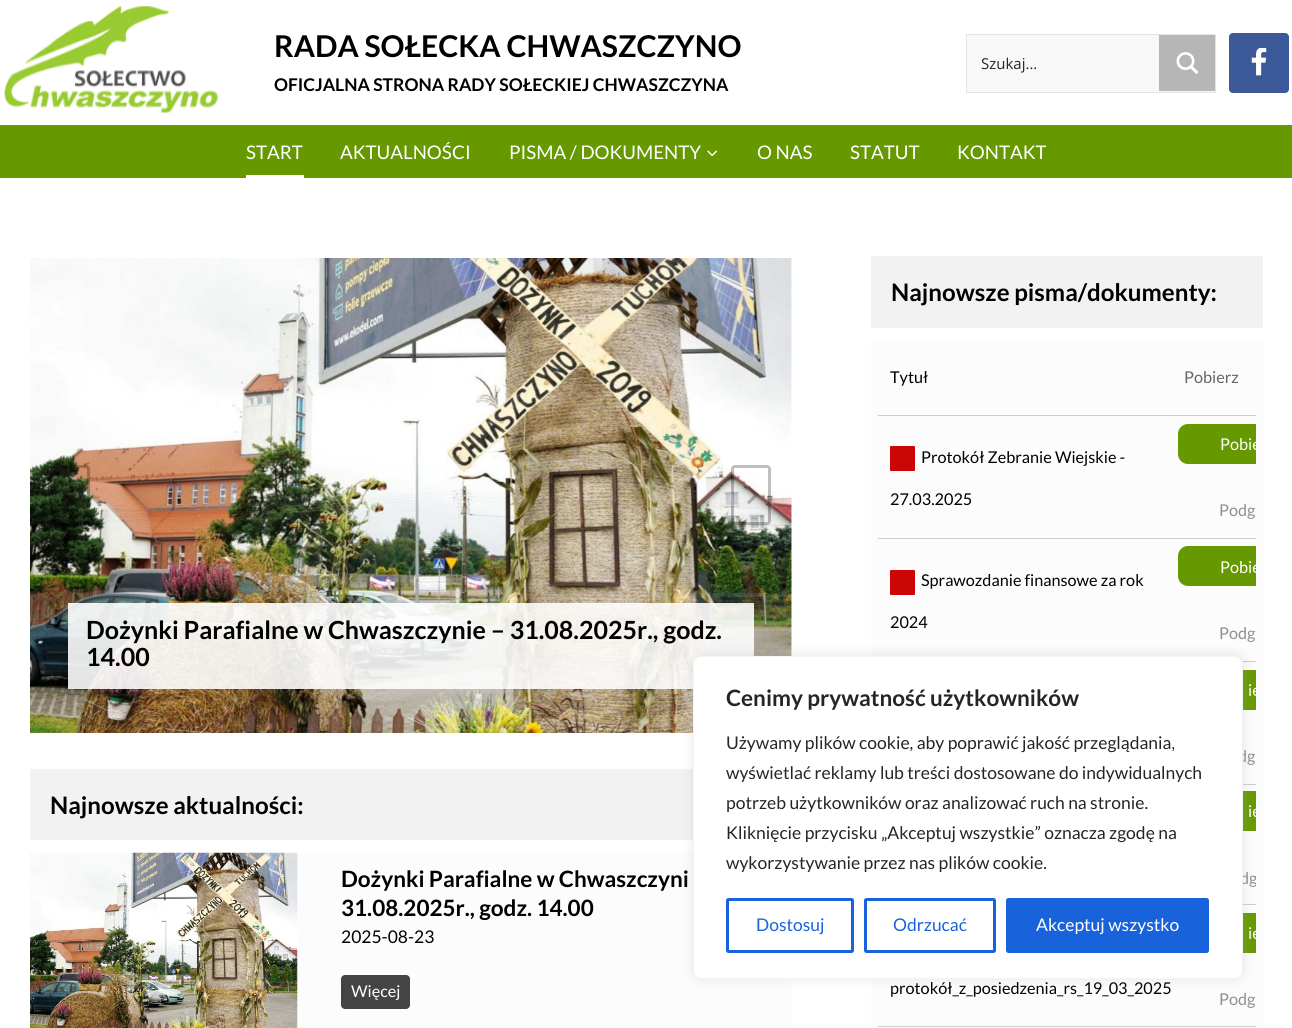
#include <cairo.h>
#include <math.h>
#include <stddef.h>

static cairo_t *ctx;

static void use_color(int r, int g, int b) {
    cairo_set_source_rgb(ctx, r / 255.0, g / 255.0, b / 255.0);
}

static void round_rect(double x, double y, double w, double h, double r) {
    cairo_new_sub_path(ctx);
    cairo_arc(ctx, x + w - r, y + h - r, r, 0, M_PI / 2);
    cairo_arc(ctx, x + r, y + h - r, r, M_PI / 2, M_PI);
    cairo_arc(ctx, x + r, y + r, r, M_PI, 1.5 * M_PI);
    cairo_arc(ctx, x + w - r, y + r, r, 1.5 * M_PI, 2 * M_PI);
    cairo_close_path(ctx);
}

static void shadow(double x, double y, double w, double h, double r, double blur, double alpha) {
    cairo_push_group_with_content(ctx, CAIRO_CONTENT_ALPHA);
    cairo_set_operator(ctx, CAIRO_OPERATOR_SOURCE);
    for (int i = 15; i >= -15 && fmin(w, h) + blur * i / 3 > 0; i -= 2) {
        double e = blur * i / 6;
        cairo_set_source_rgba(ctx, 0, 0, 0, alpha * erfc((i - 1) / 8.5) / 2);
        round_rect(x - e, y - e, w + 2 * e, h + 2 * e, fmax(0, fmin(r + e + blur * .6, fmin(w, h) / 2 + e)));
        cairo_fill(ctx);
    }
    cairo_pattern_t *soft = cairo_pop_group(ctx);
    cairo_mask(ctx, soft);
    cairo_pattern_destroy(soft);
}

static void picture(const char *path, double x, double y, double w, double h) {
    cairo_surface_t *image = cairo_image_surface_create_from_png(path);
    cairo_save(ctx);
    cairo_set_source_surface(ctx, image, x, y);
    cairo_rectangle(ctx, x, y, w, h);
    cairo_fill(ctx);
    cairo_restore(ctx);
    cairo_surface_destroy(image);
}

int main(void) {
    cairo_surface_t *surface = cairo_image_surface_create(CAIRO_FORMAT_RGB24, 1292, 1028);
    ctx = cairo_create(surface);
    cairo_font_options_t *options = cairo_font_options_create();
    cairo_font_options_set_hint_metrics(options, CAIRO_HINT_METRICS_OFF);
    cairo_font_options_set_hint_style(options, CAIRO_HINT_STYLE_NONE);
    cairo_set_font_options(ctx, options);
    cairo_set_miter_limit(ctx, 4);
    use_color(255, 255, 255);
    cairo_paint(ctx);
    picture("img1.png", 3, 6, 215, 107);
    cairo_select_font_face(ctx, "Lato", CAIRO_FONT_SLANT_NORMAL, CAIRO_FONT_WEIGHT_BOLD);
    cairo_set_font_size(ctx, 30);
    use_color(0, 0, 0);
    cairo_move_to(ctx, 274, 57);
    cairo_show_text(ctx, "RADA SOŁECKA CHWASZCZYNO");
    cairo_set_font_size(ctx, 17.5);
    cairo_move_to(ctx, 274, 91);
    cairo_show_text(ctx, "OFICJALNA STRONA RADY SOŁECKIEJ CHWASZCZYNA");
    use_color(248, 248, 248);
    cairo_rectangle(ctx, 966.5, 34.5, 249, 58);
    cairo_fill_preserve(ctx);
    use_color(228, 228, 228);
    cairo_set_line_width(ctx, 1);
    cairo_stroke(ctx);
    cairo_select_font_face(ctx, "Open Sans", CAIRO_FONT_SLANT_NORMAL, CAIRO_FONT_WEIGHT_NORMAL);
    cairo_set_font_size(ctx, 15);
    use_color(37, 37, 37);
    cairo_move_to(ctx, 981, 69);
    cairo_show_text(ctx, "Szukaj...");
    use_color(182, 182, 182);
    cairo_rectangle(ctx, 1159, 35, 56, 56);
    cairo_fill(ctx);
    picture("img2.png", 1176, 52, 23, 22);
    use_color(59, 89, 152);
    round_rect(1229, 33, 60, 60, 4);
    cairo_fill(ctx);
    picture("img3.png", 1251, 48, 16, 28);
    use_color(102, 153, 0);
    cairo_rectangle(ctx, 0, 125, 1292, 53);
    cairo_fill(ctx);
    cairo_select_font_face(ctx, "Lato", CAIRO_FONT_SLANT_NORMAL, CAIRO_FONT_WEIGHT_NORMAL);
    cairo_set_font_size(ctx, 18.75);
    use_color(255, 255, 255);
    cairo_move_to(ctx, 246, 159);
    cairo_show_text(ctx, "START");
    cairo_rectangle(ctx, 246, 175, 58, 3);
    cairo_fill(ctx);
    cairo_move_to(ctx, 340, 159);
    cairo_show_text(ctx, "AKTUALNOŚCI");
    cairo_move_to(ctx, 509, 159);
    cairo_show_text(ctx, "PISMA / DOKUMENTY");
    picture("img4.png", 707, 150, 11, 7);
    cairo_move_to(ctx, 757, 159);
    cairo_show_text(ctx, "O NAS");
    cairo_move_to(ctx, 850, 159);
    cairo_show_text(ctx, "STATUT");
    cairo_move_to(ctx, 957, 159);
    cairo_show_text(ctx, "KONTAKT");
    picture("img5.png", 30, 258, 762, 475);
    round_rect(51.5, 466.5, 37, 57, 2.5);
    cairo_set_source_rgba(ctx, 0, 0, 0, 0.25);
    cairo_set_line_width(ctx, 3);
    cairo_stroke(ctx);
    cairo_new_path(ctx);
    cairo_move_to(ctx, 72, 485.5);
    cairo_line_to(ctx, 74.5, 487.5);
    cairo_line_to(ctx, 67, 495);
    cairo_line_to(ctx, 74.5, 502);
    cairo_line_to(ctx, 72, 504.5);
    cairo_line_to(ctx, 63, 495);
    cairo_close_path(ctx);
    cairo_fill(ctx);
    round_rect(732.5, 466.5, 37, 57, 2.5);
    cairo_stroke(ctx);
    cairo_new_path(ctx);
    cairo_move_to(ctx, 749, 485.5);
    cairo_line_to(ctx, 747, 487.5);
    cairo_line_to(ctx, 754, 495);
    cairo_line_to(ctx, 747, 502);
    cairo_line_to(ctx, 749, 504.5);
    cairo_line_to(ctx, 758.5, 495);
    cairo_close_path(ctx);
    cairo_fill(ctx);
    cairo_set_source_rgba(ctx, 1, 1, 1, 0.89);
    cairo_rectangle(ctx, 68, 603, 686, 86);
    cairo_fill(ctx);
    cairo_select_font_face(ctx, "Lato", CAIRO_FONT_SLANT_NORMAL, CAIRO_FONT_WEIGHT_BOLD);
    cairo_set_font_size(ctx, 25);
    use_color(0, 0, 0);
    cairo_move_to(ctx, 86, 639);
    cairo_show_text(ctx, "Dożynki Parafialne w Chwaszczynie – 31.08.2025r., godz.");
    cairo_move_to(ctx, 86, 666);
    cairo_show_text(ctx, "14.00");
    use_color(242, 242, 242);
    cairo_rectangle(ctx, 30, 769, 663, 71);
    cairo_fill(ctx);
    cairo_set_font_size(ctx, 24.1);
    use_color(0, 0, 0);
    cairo_move_to(ctx, 50, 814);
    cairo_show_text(ctx, "Najnowsze aktualności:");
    use_color(252, 252, 252);
    cairo_rectangle(ctx, 297, 853, 494, 175);
    cairo_fill(ctx);
    picture("img6.png", 30, 852, 268, 176);
    cairo_set_font_size(ctx, 22.5);
    use_color(0, 0, 0);
    cairo_move_to(ctx, 341, 887);
    cairo_show_text(ctx, "Dożynki Parafialne w Chwaszczyni");
    cairo_move_to(ctx, 341, 916);
    cairo_show_text(ctx, "31.08.2025r., godz. 14.00");
    cairo_select_font_face(ctx, "Lato", CAIRO_FONT_SLANT_NORMAL, CAIRO_FONT_WEIGHT_NORMAL);
    cairo_set_font_size(ctx, 17.5);
    cairo_move_to(ctx, 341, 943);
    cairo_show_text(ctx, "2025-08-23");
    use_color(68, 68, 68);
    round_rect(341, 975, 69, 34, 4);
    cairo_fill(ctx);
    cairo_set_font_size(ctx, 16.25);
    use_color(255, 255, 255);
    cairo_move_to(ctx, 351, 997);
    cairo_show_text(ctx, "Więcej");
    use_color(242, 242, 242);
    cairo_rectangle(ctx, 871, 256, 392, 72);
    cairo_fill(ctx);
    cairo_select_font_face(ctx, "Lato", CAIRO_FONT_SLANT_NORMAL, CAIRO_FONT_WEIGHT_BOLD);
    cairo_set_font_size(ctx, 24.1);
    use_color(0, 0, 0);
    cairo_move_to(ctx, 891, 301);
    cairo_show_text(ctx, "Najnowsze pisma/dokumenty:");
    use_color(252, 252, 252);
    cairo_rectangle(ctx, 871, 340, 392, 688);
    cairo_fill(ctx);
    cairo_select_font_face(ctx, "Lato", CAIRO_FONT_SLANT_NORMAL, CAIRO_FONT_WEIGHT_NORMAL);
    cairo_set_font_size(ctx, 16.25);
    use_color(0, 0, 0);
    cairo_move_to(ctx, 890, 383);
    cairo_show_text(ctx, "Tytuł");
    use_color(102, 102, 102);
    cairo_move_to(ctx, 1184, 383);
    cairo_show_text(ctx, "Pobierz");
    use_color(204, 204, 204);
    cairo_rectangle(ctx, 878, 415, 378, 1);
    cairo_fill(ctx);
    use_color(203, 6, 6);
    round_rect(890, 446, 25, 25, 1);
    cairo_fill(ctx);
    use_color(0, 0, 0);
    cairo_move_to(ctx, 921, 463);
    cairo_show_text(ctx, "Protokół Zebranie Wiejskie -");
    cairo_move_to(ctx, 890, 505);
    cairo_show_text(ctx, "27.03.2025");
    use_color(102, 153, 0);
    cairo_new_path(ctx);
    cairo_move_to(ctx, 1188, 424);
    cairo_line_to(ctx, 1256, 424);
    cairo_line_to(ctx, 1256, 464);
    cairo_line_to(ctx, 1188, 464);
    cairo_curve_to(ctx, 1182.5, 464, 1178, 459.5, 1178, 454);
    cairo_line_to(ctx, 1178, 434);
    cairo_curve_to(ctx, 1178, 428.5, 1182.5, 424, 1188, 424);
    cairo_close_path(ctx);
    cairo_fill(ctx);
    cairo_save(ctx);
    cairo_rectangle(ctx, 878, 340, 378, 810);
    cairo_clip(ctx);
    use_color(255, 255, 255);
    cairo_move_to(ctx, 1220, 450);
    cairo_show_text(ctx, "Pobie");
    cairo_restore(ctx);
    use_color(143, 143, 143);
    cairo_move_to(ctx, 1219, 516);
    cairo_show_text(ctx, "Podg");
    use_color(204, 204, 204);
    cairo_rectangle(ctx, 878, 538, 378, 1);
    cairo_fill(ctx);
    use_color(203, 6, 6);
    round_rect(890, 570, 25, 25, 1);
    cairo_fill(ctx);
    use_color(0, 0, 0);
    cairo_move_to(ctx, 921, 586);
    cairo_show_text(ctx, "Sprawozdanie finansowe za rok");
    cairo_move_to(ctx, 890, 628);
    cairo_show_text(ctx, "2024");
    use_color(102, 153, 0);
    cairo_new_path(ctx);
    cairo_move_to(ctx, 1188, 546);
    cairo_line_to(ctx, 1256, 546);
    cairo_line_to(ctx, 1256, 586);
    cairo_line_to(ctx, 1188, 586);
    cairo_curve_to(ctx, 1182.5, 586, 1178, 581.5, 1178, 576);
    cairo_line_to(ctx, 1178, 556);
    cairo_curve_to(ctx, 1178, 550.5, 1182.5, 546, 1188, 546);
    cairo_close_path(ctx);
    cairo_fill(ctx);
    cairo_save(ctx);
    cairo_rectangle(ctx, 878, 340, 378, 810);
    cairo_clip(ctx);
    use_color(255, 255, 255);
    cairo_move_to(ctx, 1220, 573);
    cairo_show_text(ctx, "Pobie");
    cairo_restore(ctx);
    use_color(143, 143, 143);
    cairo_move_to(ctx, 1219, 639);
    cairo_show_text(ctx, "Podg");
    use_color(204, 204, 204);
    cairo_rectangle(ctx, 1242, 661, 14, 1);
    cairo_fill(ctx);
    use_color(102, 153, 0);
    cairo_rectangle(ctx, 1243, 670, 13, 40);
    cairo_fill(ctx);
    cairo_save(ctx);
    cairo_rectangle(ctx, 878, 340, 378, 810);
    cairo_clip(ctx);
    use_color(255, 255, 255);
    cairo_move_to(ctx, 1248, 696);
    cairo_show_text(ctx, "ie");
    cairo_restore(ctx);
    use_color(143, 143, 143);
    cairo_move_to(ctx, 1238, 762);
    cairo_show_text(ctx, "dg");
    use_color(204, 204, 204);
    cairo_rectangle(ctx, 1243, 784, 13, 1);
    cairo_fill(ctx);
    use_color(102, 153, 0);
    cairo_rectangle(ctx, 1243, 791, 13, 40);
    cairo_fill(ctx);
    cairo_save(ctx);
    cairo_rectangle(ctx, 878, 340, 378, 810);
    cairo_clip(ctx);
    use_color(255, 255, 255);
    cairo_move_to(ctx, 1248, 817);
    cairo_show_text(ctx, "ie");
    use_color(143, 143, 143);
    cairo_move_to(ctx, 1240, 884);
    cairo_show_text(ctx, "dg");
    cairo_restore(ctx);
    use_color(0, 0, 0);
    cairo_move_to(ctx, 890, 994);
    cairo_show_text(ctx, "protokół_z_posiedzenia_rs_19_03_2025");
    use_color(204, 204, 204);
    cairo_rectangle(ctx, 1243, 904, 13, 1);
    cairo_fill(ctx);
    use_color(102, 153, 0);
    cairo_rectangle(ctx, 1243, 913, 13, 40);
    cairo_fill(ctx);
    cairo_save(ctx);
    cairo_rectangle(ctx, 878, 340, 378, 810);
    cairo_clip(ctx);
    use_color(255, 255, 255);
    cairo_move_to(ctx, 1248, 939);
    cairo_show_text(ctx, "ie");
    cairo_restore(ctx);
    use_color(143, 143, 143);
    cairo_move_to(ctx, 1219, 1005);
    cairo_show_text(ctx, "Podg");
    use_color(204, 204, 204);
    cairo_rectangle(ctx, 878, 1026, 378, 1);
    cairo_fill(ctx);
    use_color(172, 171, 171);
    shadow(693, 655, 550, 323, 8, 6, 0.3);
    use_color(255, 255, 255);
    round_rect(693.5, 656.5, 549, 322, 7.5);
    cairo_fill_preserve(ctx);
    use_color(244, 244, 244);
    cairo_set_line_width(ctx, 1);
    cairo_stroke(ctx);
    cairo_select_font_face(ctx, "Lato", CAIRO_FONT_SLANT_NORMAL, CAIRO_FONT_WEIGHT_BOLD);
    cairo_set_font_size(ctx, 22.5);
    use_color(37, 37, 37);
    cairo_move_to(ctx, 726, 706);
    cairo_show_text(ctx, "Cenimy prywatność użytkowników");
    cairo_select_font_face(ctx, "Lato", CAIRO_FONT_SLANT_NORMAL, CAIRO_FONT_WEIGHT_NORMAL);
    cairo_set_font_size(ctx, 17.5);
    cairo_move_to(ctx, 726, 749);
    cairo_show_text(ctx, "Używamy plików cookie, aby poprawić jakość przeglądania,");
    cairo_move_to(ctx, 726, 779);
    cairo_show_text(ctx, "wyświetlać reklamy lub treści dostosowane do indywidualnych");
    cairo_move_to(ctx, 726, 809);
    cairo_show_text(ctx, "potrzeb użytkowników oraz analizować ruch na stronie.");
    cairo_move_to(ctx, 726, 839);
    cairo_show_text(ctx, "Kliknięcie przycisku „Akceptuj wszystkie” oznacza zgodę na");
    cairo_move_to(ctx, 726, 869);
    cairo_show_text(ctx, "wykorzystywanie przez nas plików cookie.");
    round_rect(727.5, 899.5, 125, 52, 1);
    use_color(24, 99, 220);
    cairo_set_line_width(ctx, 3);
    cairo_stroke(ctx);
    cairo_move_to(ctx, 756, 931);
    cairo_show_text(ctx, "Dostosuj");
    round_rect(865.5, 899.5, 129, 52, 1);
    cairo_stroke(ctx);
    cairo_move_to(ctx, 893, 931);
    cairo_show_text(ctx, "Odrzucać");
    round_rect(1007.5, 899.5, 200, 52, 1);
    cairo_fill_preserve(ctx);
    cairo_stroke(ctx);
    use_color(255, 255, 255);
    cairo_move_to(ctx, 1036, 931);
    cairo_show_text(ctx, "Akceptuj wszystko");
    cairo_surface_write_to_png(surface, "result.png");
    cairo_font_options_destroy(options);
    cairo_destroy(ctx);
    cairo_surface_destroy(surface);
    return 0;
}
